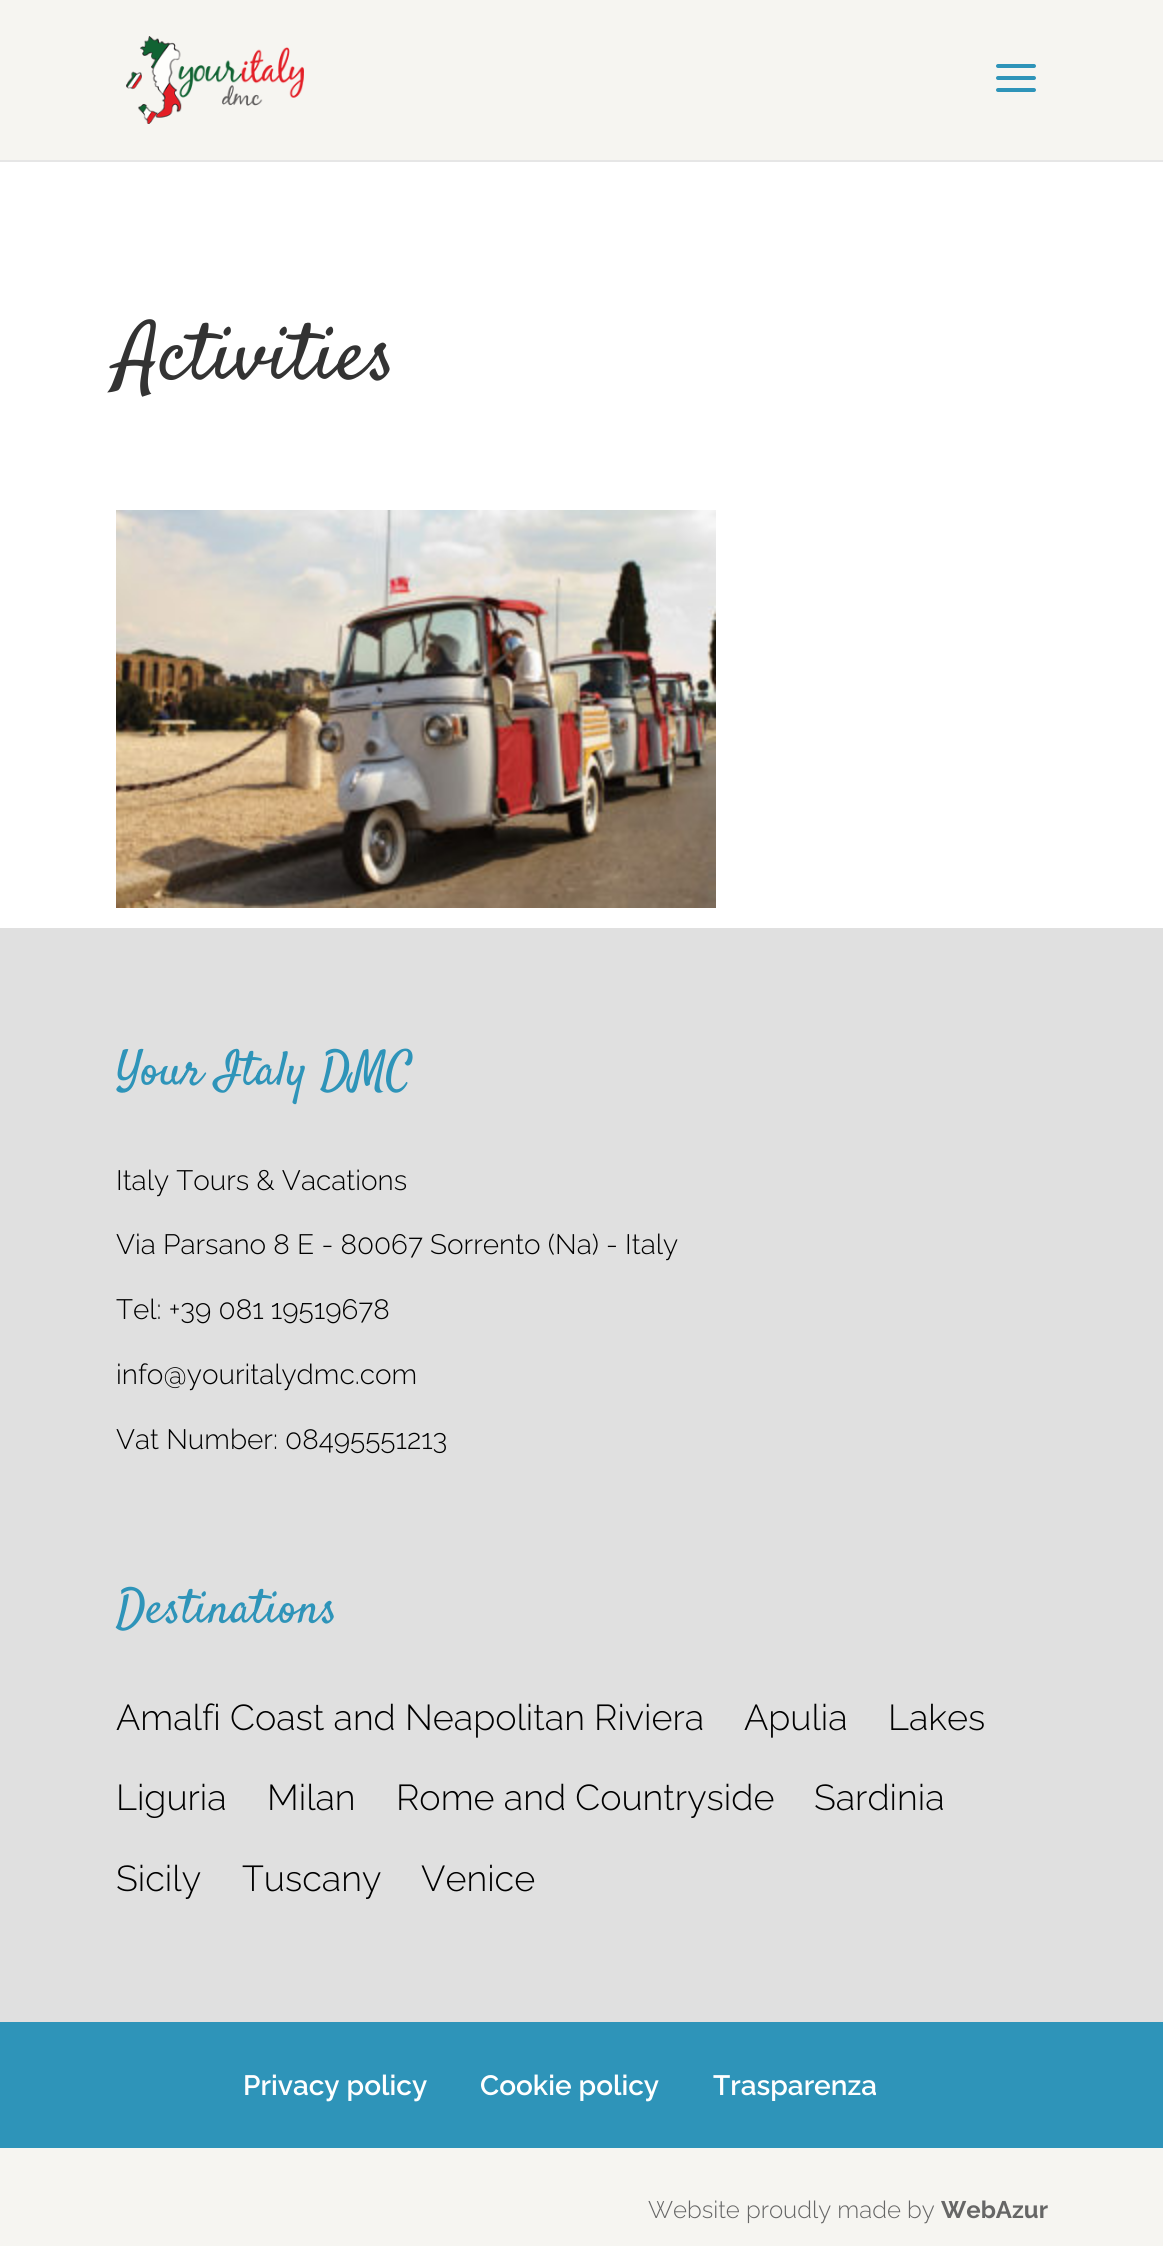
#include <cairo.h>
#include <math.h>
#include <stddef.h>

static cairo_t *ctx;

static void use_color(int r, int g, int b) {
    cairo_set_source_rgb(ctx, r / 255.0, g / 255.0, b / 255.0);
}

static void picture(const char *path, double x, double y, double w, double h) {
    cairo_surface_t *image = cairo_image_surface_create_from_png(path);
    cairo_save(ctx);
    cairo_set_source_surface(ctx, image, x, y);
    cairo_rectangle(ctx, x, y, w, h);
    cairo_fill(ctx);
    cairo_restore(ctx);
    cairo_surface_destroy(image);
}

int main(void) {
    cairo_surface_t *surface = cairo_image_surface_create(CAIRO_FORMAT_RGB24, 1163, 2246);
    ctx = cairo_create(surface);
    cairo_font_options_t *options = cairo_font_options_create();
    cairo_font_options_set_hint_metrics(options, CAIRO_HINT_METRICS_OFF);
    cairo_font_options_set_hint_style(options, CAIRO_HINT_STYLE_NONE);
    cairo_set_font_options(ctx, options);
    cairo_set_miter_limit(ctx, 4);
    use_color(255, 255, 255);
    cairo_paint(ctx);
    use_color(230, 230, 230);
    cairo_rectangle(ctx, 0, 160, 1163, 2);
    cairo_fill(ctx);
    use_color(246, 245, 241);
    cairo_rectangle(ctx, 0, 0, 1163, 160);
    cairo_fill(ctx);
    picture("img1.png", 126, 36, 178, 88);
    picture("img2.png", 996, 64, 40, 28);
    cairo_select_font_face(ctx, "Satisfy", CAIRO_FONT_SLANT_NORMAL, CAIRO_FONT_WEIGHT_NORMAL);
    cairo_set_font_size(ctx, 80);
    use_color(51, 51, 51);
    cairo_move_to(ctx, 116, 378);
    cairo_show_text(ctx, "Activities");
    picture("img3.png", 116, 510, 600, 398);
    use_color(224, 224, 224);
    cairo_rectangle(ctx, 0, 928, 1163, 1094);
    cairo_fill(ctx);
    cairo_set_font_size(ctx, 48);
    use_color(46, 148, 185);
    cairo_move_to(ctx, 116, 1084);
    cairo_show_text(ctx, "Your Italy DMC");
    cairo_select_font_face(ctx, "Raleway Light", CAIRO_FONT_SLANT_NORMAL, CAIRO_FONT_WEIGHT_NORMAL);
    cairo_set_font_size(ctx, 28);
    use_color(0, 0, 0);
    cairo_move_to(ctx, 116, 1190);
    cairo_show_text(ctx, "Italy Tours & Vacations");
    cairo_move_to(ctx, 116, 1254);
    cairo_show_text(ctx, "Via Parsano 8 E - 80067 Sorrento (Na) - Italy");
    cairo_move_to(ctx, 116, 1319);
    cairo_show_text(ctx, "Tel: +39 081 19519678");
    cairo_move_to(ctx, 116, 1384);
    cairo_show_text(ctx, "info@youritalydmc.com");
    cairo_move_to(ctx, 116, 1449);
    cairo_show_text(ctx, "Vat Number: 08495551213");
    cairo_select_font_face(ctx, "Satisfy", CAIRO_FONT_SLANT_NORMAL, CAIRO_FONT_WEIGHT_NORMAL);
    cairo_set_font_size(ctx, 48);
    use_color(46, 148, 185);
    cairo_move_to(ctx, 116, 1622);
    cairo_show_text(ctx, "Destinations");
    cairo_select_font_face(ctx, "Raleway Light", CAIRO_FONT_SLANT_NORMAL, CAIRO_FONT_WEIGHT_NORMAL);
    cairo_set_font_size(ctx, 36);
    use_color(0, 0, 0);
    cairo_move_to(ctx, 116, 1730);
    cairo_show_text(ctx, "Amalfi Coast and Neapolitan Riviera");
    cairo_move_to(ctx, 744, 1730);
    cairo_show_text(ctx, "Apulia");
    cairo_move_to(ctx, 888, 1730);
    cairo_show_text(ctx, "Lakes");
    cairo_move_to(ctx, 116, 1810);
    cairo_show_text(ctx, "Liguria");
    cairo_move_to(ctx, 267, 1810);
    cairo_show_text(ctx, "Milan");
    cairo_move_to(ctx, 396, 1810);
    cairo_show_text(ctx, "Rome and Countryside");
    cairo_move_to(ctx, 814, 1810);
    cairo_show_text(ctx, "Sardinia");
    cairo_move_to(ctx, 116, 1891);
    cairo_show_text(ctx, "Sicily");
    cairo_move_to(ctx, 242, 1891);
    cairo_show_text(ctx, "Tuscany");
    cairo_move_to(ctx, 421, 1891);
    cairo_show_text(ctx, "Venice");
    use_color(46, 148, 185);
    cairo_rectangle(ctx, 0, 2022, 1163, 126);
    cairo_fill(ctx);
    cairo_select_font_face(ctx, "Raleway SemiBold", CAIRO_FONT_SLANT_NORMAL, CAIRO_FONT_WEIGHT_NORMAL);
    cairo_set_font_size(ctx, 28);
    use_color(255, 255, 255);
    cairo_move_to(ctx, 243, 2095);
    cairo_show_text(ctx, "Privacy policy");
    cairo_move_to(ctx, 480, 2095);
    cairo_show_text(ctx, "Cookie policy");
    cairo_move_to(ctx, 713, 2095);
    cairo_show_text(ctx, "Trasparenza");
    use_color(246, 245, 241);
    cairo_rectangle(ctx, 0, 2148, 1163, 98);
    cairo_fill(ctx);
    cairo_select_font_face(ctx, "Raleway Light", CAIRO_FONT_SLANT_NORMAL, CAIRO_FONT_WEIGHT_NORMAL);
    cairo_set_font_size(ctx, 24);
    use_color(102, 102, 102);
    cairo_move_to(ctx, 648, 2218);
    cairo_show_text(ctx, "Website proudly made by");
    cairo_select_font_face(ctx, "Raleway", CAIRO_FONT_SLANT_NORMAL, CAIRO_FONT_WEIGHT_BOLD);
    cairo_move_to(ctx, 941, 2218);
    cairo_show_text(ctx, "WebAzur");
    cairo_surface_write_to_png(surface, "result.png");
    cairo_font_options_destroy(options);
    cairo_destroy(ctx);
    cairo_surface_destroy(surface);
    return 0;
}
